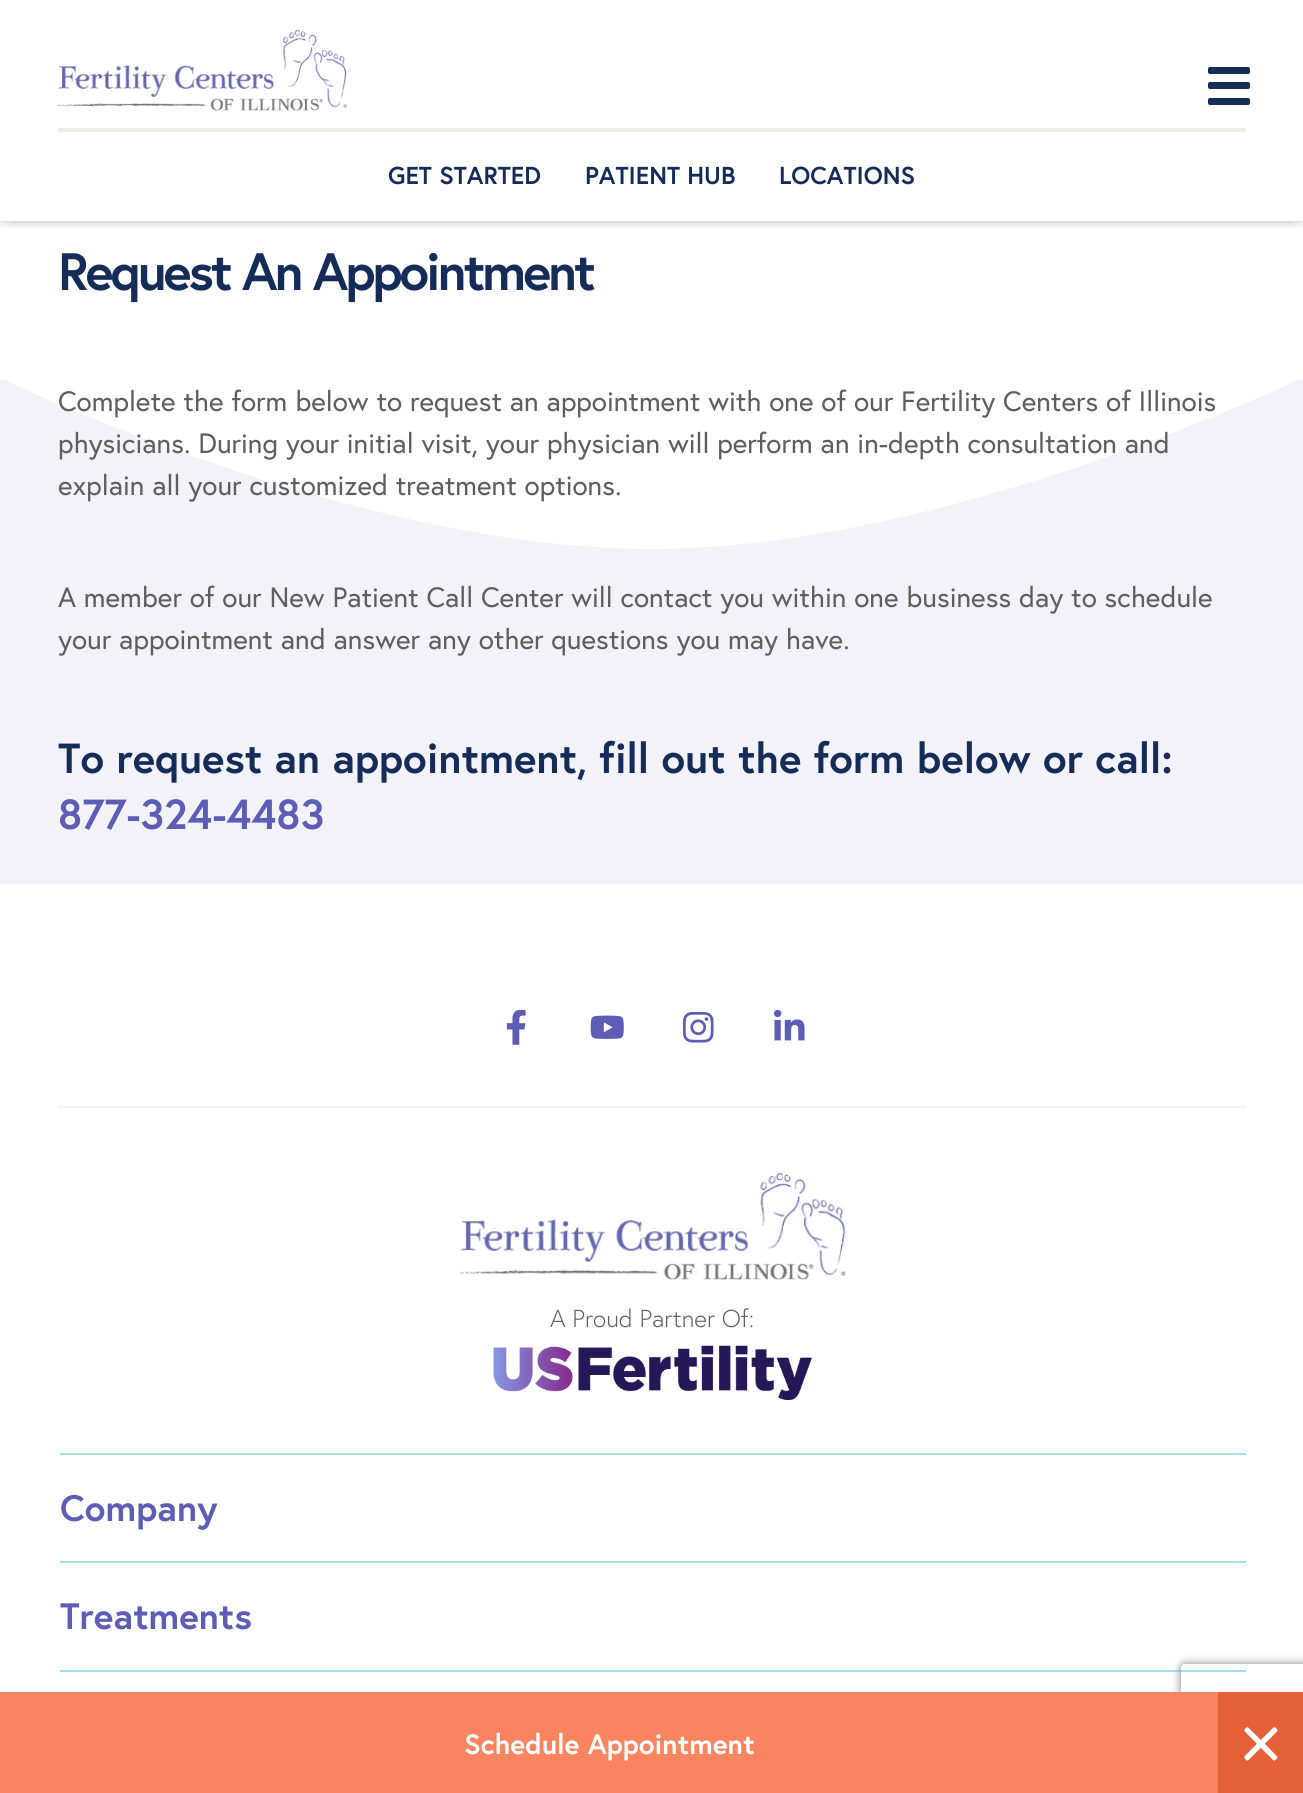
#include <cairo.h>
#include <math.h>
#include <stddef.h>

static cairo_t *ctx;

static void use_color(int r, int g, int b) {
    cairo_set_source_rgb(ctx, r / 255.0, g / 255.0, b / 255.0);
}

static void spaced_text(double x, double y, const char *s, double letter, double word) {
    cairo_move_to(ctx, x, y);
    while (*s) {
        char ch[5] = {0};
        int n = 0;
        do ch[n++] = *s++; while ((*s & 0xC0) == 0x80);
        cairo_show_text(ctx, ch);
        cairo_rel_move_to(ctx, letter + word * (*ch == ' '), 0);
    }
}

static void round_rect(double x, double y, double w, double h, double r) {
    cairo_new_sub_path(ctx);
    cairo_arc(ctx, x + w - r, y + h - r, r, 0, M_PI / 2);
    cairo_arc(ctx, x + r, y + h - r, r, M_PI / 2, M_PI);
    cairo_arc(ctx, x + r, y + r, r, M_PI, 1.5 * M_PI);
    cairo_arc(ctx, x + w - r, y + r, r, 1.5 * M_PI, 2 * M_PI);
    cairo_close_path(ctx);
}

static void shadow(double x, double y, double w, double h, double r, double blur, double alpha) {
    cairo_push_group_with_content(ctx, CAIRO_CONTENT_ALPHA);
    cairo_set_operator(ctx, CAIRO_OPERATOR_SOURCE);
    for (int i = 15; i >= -15 && fmin(w, h) + blur * i / 3 > 0; i -= 2) {
        double e = blur * i / 6;
        cairo_set_source_rgba(ctx, 0, 0, 0, alpha * erfc((i - 1) / 8.5) / 2);
        round_rect(x - e, y - e, w + 2 * e, h + 2 * e, fmax(0, fmin(r + e + blur * .6, fmin(w, h) / 2 + e)));
        cairo_fill(ctx);
    }
    cairo_pattern_t *soft = cairo_pop_group(ctx);
    cairo_mask(ctx, soft);
    cairo_pattern_destroy(soft);
}

static void picture(const char *path, double x, double y, double w, double h) {
    cairo_surface_t *image = cairo_image_surface_create_from_png(path);
    cairo_save(ctx);
    cairo_set_source_surface(ctx, image, x, y);
    cairo_rectangle(ctx, x, y, w, h);
    cairo_fill(ctx);
    cairo_restore(ctx);
    cairo_surface_destroy(image);
}

int main(void) {
    cairo_surface_t *surface = cairo_image_surface_create(CAIRO_FORMAT_RGB24, 1303, 1793);
    ctx = cairo_create(surface);
    cairo_font_options_t *options = cairo_font_options_create();
    cairo_font_options_set_hint_metrics(options, CAIRO_HINT_METRICS_OFF);
    cairo_font_options_set_hint_style(options, CAIRO_HINT_STYLE_NONE);
    cairo_set_font_options(ctx, options);
    cairo_set_miter_limit(ctx, 4);
    use_color(255, 255, 255);
    cairo_paint(ctx);
    use_color(0, 0, 0);
    shadow(0, 2, 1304, 220, 0, 5, 0.16);
    use_color(255, 255, 255);
    cairo_rectangle(ctx, 0, 0, 1303, 221);
    cairo_fill(ctx);
    picture("img1.png", 57, 29, 290, 82);
    use_color(21, 44, 89);
    round_rect(1208, 67, 42, 7, 2);
    cairo_fill(ctx);
    round_rect(1208, 82, 42, 7, 2);
    cairo_fill(ctx);
    round_rect(1208, 98, 42, 7, 2);
    cairo_fill(ctx);
    cairo_save(ctx);
    cairo_set_fill_rule(ctx, CAIRO_FILL_RULE_EVEN_ODD);
    cairo_new_path(ctx);
    cairo_move_to(ctx, 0, 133);
    cairo_line_to(ctx, 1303, 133);
    cairo_line_to(ctx, 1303, 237);
    cairo_line_to(ctx, 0, 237);
    cairo_close_path(ctx);
    cairo_move_to(ctx, 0, 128);
    cairo_line_to(ctx, 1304, 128);
    cairo_line_to(ctx, 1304, 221);
    cairo_line_to(ctx, 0, 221);
    cairo_close_path(ctx);
    cairo_clip(ctx);
    use_color(0, 0, 0);
    shadow(11, 149, 1282, 72, 0, 5, 0.16);
    cairo_restore(ctx);
    use_color(239, 237, 230);
    cairo_rectangle(ctx, 58, 128, 1188, 4);
    cairo_fill(ctx);
    cairo_select_font_face(ctx, "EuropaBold", CAIRO_FONT_SLANT_NORMAL, CAIRO_FONT_WEIGHT_BOLD);
    cairo_set_font_size(ctx, 24.5);
    use_color(21, 44, 89);
    cairo_move_to(ctx, 388, 184);
    cairo_show_text(ctx, "GET STARTED");
    cairo_move_to(ctx, 585, 184);
    cairo_show_text(ctx, "PATIENT HUB");
    cairo_move_to(ctx, 779, 184);
    cairo_show_text(ctx, "LOCATIONS");
    cairo_set_font_size(ctx, 52.5);
    spaced_text(58, 290, "Request An Appointment", -3, 0);
    use_color(242, 242, 248);
    cairo_rectangle(ctx, 0, 380, 1303, 504);
    cairo_fill(ctx);
    cairo_save(ctx);
    cairo_rectangle(ctx, 0, 378, 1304, 175);
    cairo_clip(ctx);
    use_color(255, 255, 255);
    cairo_new_path(ctx);
    cairo_move_to(ctx, -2, 377);
    cairo_curve_to(ctx, -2, 377, 352, 549, 651, 549);
    cairo_curve_to(ctx, 950, 549, 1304, 377, 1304, 377);
    cairo_close_path(ctx);
    cairo_fill(ctx);
    cairo_restore(ctx);
    cairo_select_font_face(ctx, "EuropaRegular", CAIRO_FONT_SLANT_NORMAL, CAIRO_FONT_WEIGHT_NORMAL);
    cairo_set_font_size(ctx, 28);
    use_color(94, 94, 94);
    cairo_move_to(ctx, 58, 411);
    cairo_show_text(ctx, "Complete the form below to request an appointment with one of our Fertility Centers of Illinois");
    cairo_move_to(ctx, 58, 453);
    cairo_show_text(ctx, "physicians. During your initial visit, your physician will perform an in-depth consultation and");
    cairo_move_to(ctx, 58, 495);
    cairo_show_text(ctx, "explain all your customized treatment options.");
    cairo_move_to(ctx, 58, 607);
    cairo_show_text(ctx, "A member of our New Patient Call Center will contact you within one business day to schedule");
    cairo_move_to(ctx, 58, 649);
    cairo_show_text(ctx, "your appointment and answer any other questions you may have.");
    cairo_select_font_face(ctx, "EuropaBold", CAIRO_FONT_SLANT_NORMAL, CAIRO_FONT_WEIGHT_BOLD);
    cairo_set_font_size(ctx, 42);
    use_color(21, 44, 89);
    cairo_move_to(ctx, 58, 773);
    cairo_show_text(ctx, "To request an appointment, fill out the form below or call:");
    use_color(93, 93, 181);
    cairo_move_to(ctx, 58, 829);
    cairo_show_text(ctx, "877-324-4483");
    picture("img2.png", 506, 1010, 20, 35);
    picture("img3.png", 590, 1015, 34, 24);
    picture("img4.png", 682, 1011, 32, 32);
    picture("img5.png", 774, 1010, 31, 31);
    use_color(242, 242, 248);
    cairo_rectangle(ctx, 58, 1106, 1188, 2);
    cairo_fill(ctx);
    picture("img6.png", 460, 1172, 386, 108);
    cairo_select_font_face(ctx, "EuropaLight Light", CAIRO_FONT_SLANT_NORMAL, CAIRO_FONT_WEIGHT_NORMAL);
    cairo_set_font_size(ctx, 24.5);
    use_color(94, 94, 94);
    cairo_move_to(ctx, 550, 1327);
    cairo_show_text(ctx, "A Proud Partner Of:");
    picture("img7.png", 493, 1345, 319, 55);
    use_color(160, 226, 228);
    cairo_rectangle(ctx, 60, 1453, 1186, 2);
    cairo_fill(ctx);
    cairo_select_font_face(ctx, "EuropaBold", CAIRO_FONT_SLANT_NORMAL, CAIRO_FONT_WEIGHT_BOLD);
    cairo_set_font_size(ctx, 36.75);
    use_color(93, 93, 181);
    cairo_move_to(ctx, 60, 1521);
    cairo_show_text(ctx, "Company");
    use_color(160, 226, 228);
    cairo_rectangle(ctx, 60, 1561, 1186, 2);
    cairo_fill(ctx);
    use_color(93, 93, 181);
    cairo_move_to(ctx, 60, 1629);
    cairo_show_text(ctx, "Treatments");
    use_color(160, 226, 228);
    cairo_rectangle(ctx, 60, 1670, 1186, 2);
    cairo_fill(ctx);
    cairo_save(ctx);
    cairo_set_fill_rule(ctx, CAIRO_FILL_RULE_EVEN_ODD);
    cairo_new_path(ctx);
    cairo_move_to(ctx, 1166, 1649);
    cairo_line_to(ctx, 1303, 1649);
    cairo_line_to(ctx, 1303, 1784);
    cairo_line_to(ctx, 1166, 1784);
    cairo_close_path(ctx);
    cairo_move_to(ctx, 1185, 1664);
    cairo_line_to(ctx, 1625, 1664);
    cairo_curve_to(ctx, 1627, 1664, 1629, 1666, 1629, 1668);
    cairo_line_to(ctx, 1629, 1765);
    cairo_curve_to(ctx, 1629, 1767, 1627, 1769, 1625, 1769);
    cairo_line_to(ctx, 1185, 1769);
    cairo_curve_to(ctx, 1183, 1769, 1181, 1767, 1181, 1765);
    cairo_line_to(ctx, 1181, 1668);
    cairo_curve_to(ctx, 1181, 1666, 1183, 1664, 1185, 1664);
    cairo_close_path(ctx);
    cairo_clip(ctx);
    use_color(128, 128, 128);
    shadow(1181, 1664, 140, 105, 4, 4.5, 1);
    cairo_restore(ctx);
    use_color(250, 132, 96);
    cairo_rectangle(ctx, 0, 1692, 1218, 101);
    cairo_fill(ctx);
    cairo_set_font_size(ctx, 28);
    use_color(255, 255, 255);
    cairo_move_to(ctx, 464, 1754);
    cairo_show_text(ctx, "Schedule Appointment");
    use_color(230, 96, 55);
    cairo_rectangle(ctx, 1218, 1692, 85, 101);
    cairo_fill(ctx);
    picture("img8.png", 1244, 1727, 34, 34);
    cairo_surface_write_to_png(surface, "result.png");
    cairo_font_options_destroy(options);
    cairo_destroy(ctx);
    cairo_surface_destroy(surface);
    return 0;
}
